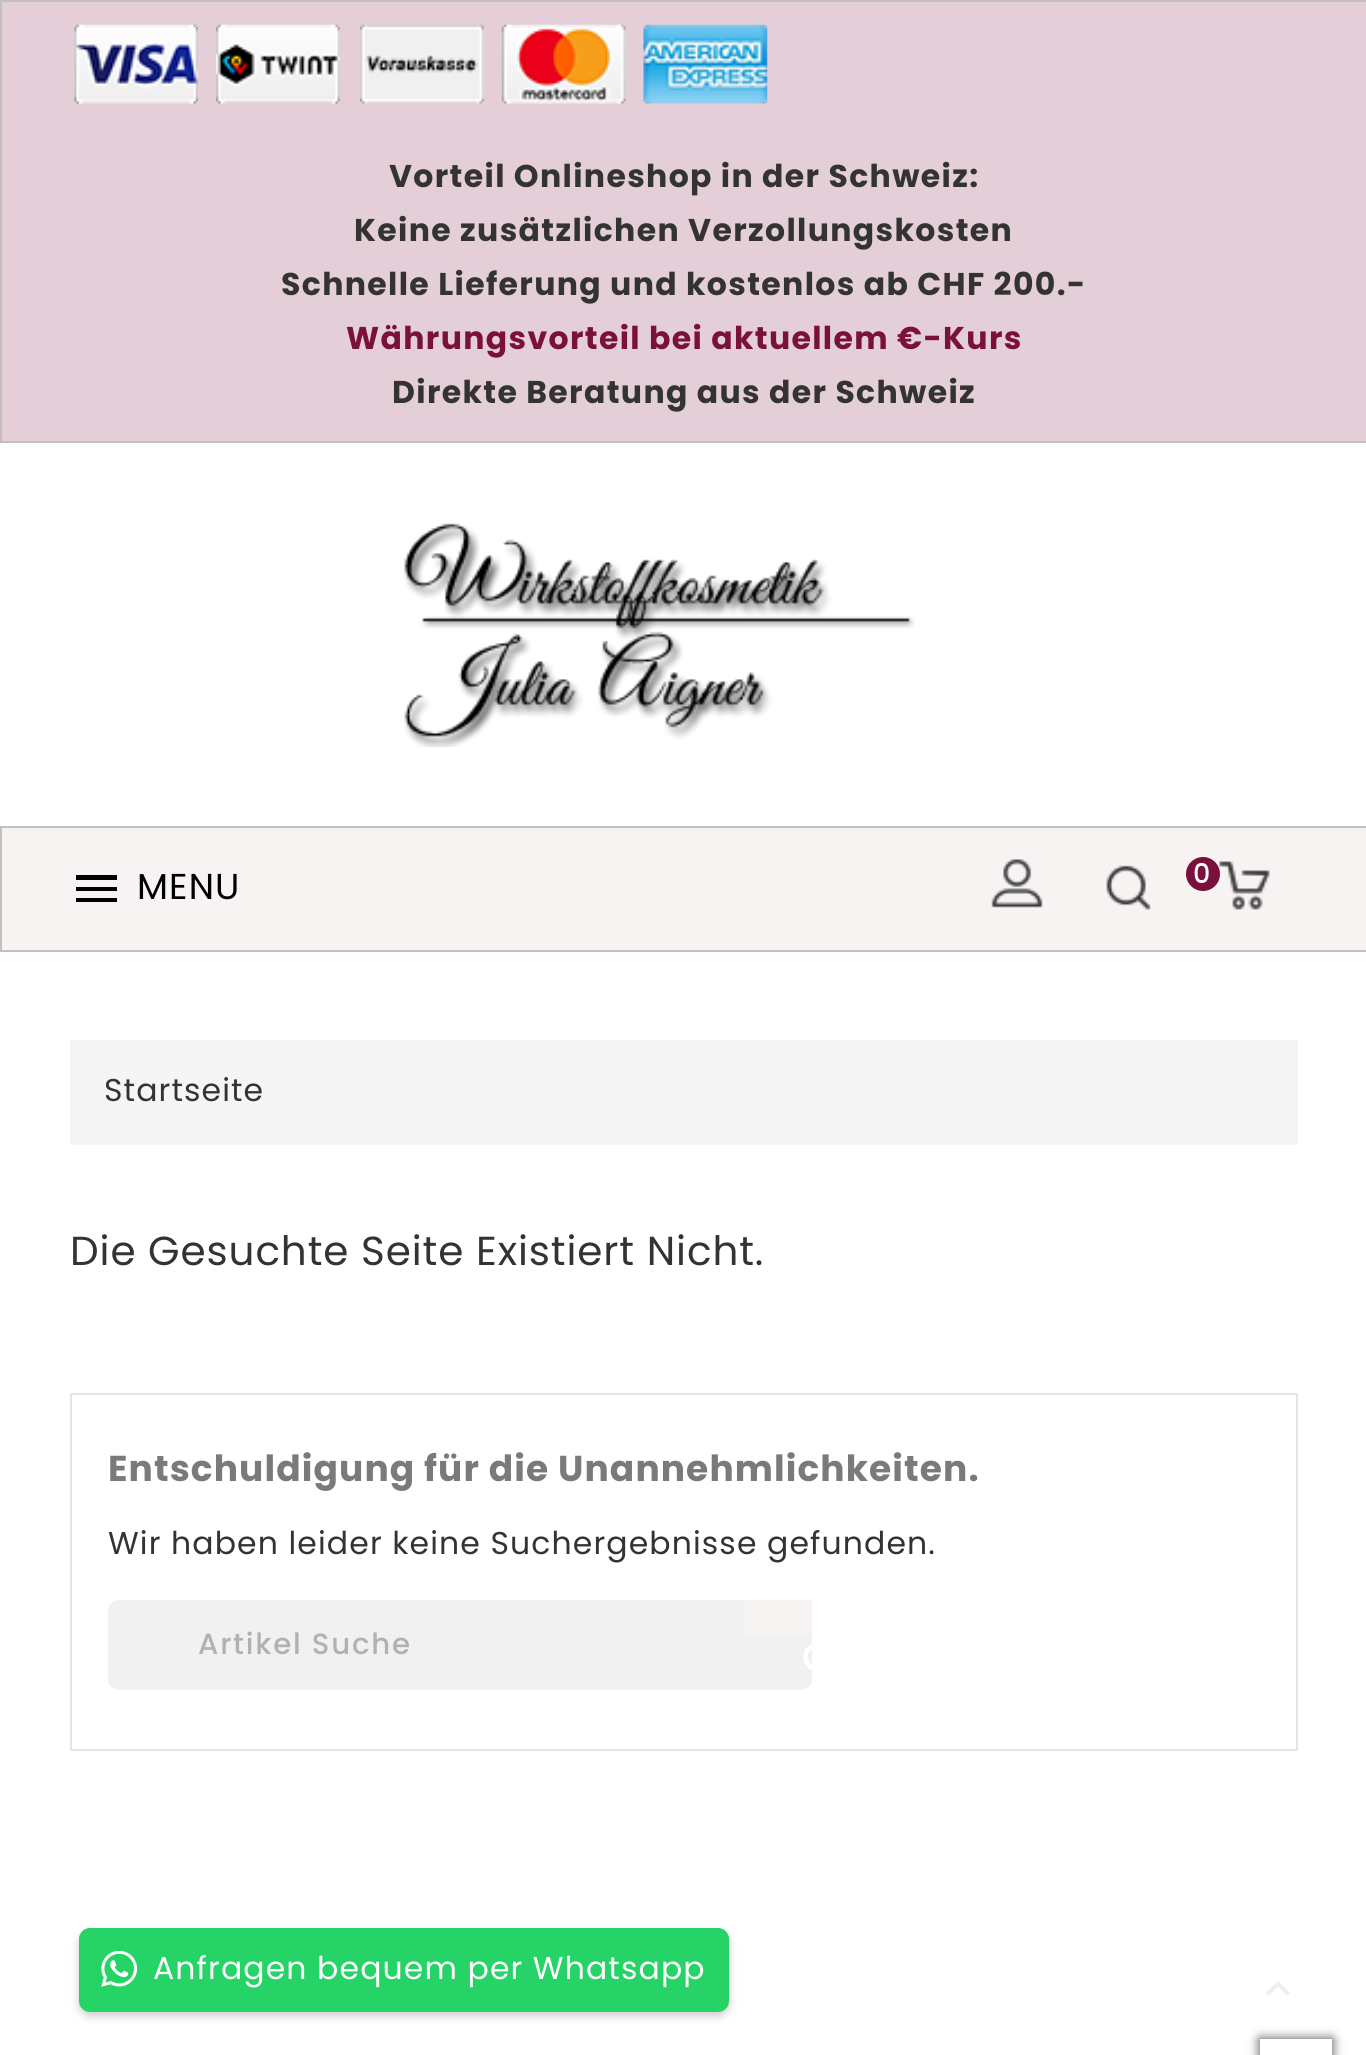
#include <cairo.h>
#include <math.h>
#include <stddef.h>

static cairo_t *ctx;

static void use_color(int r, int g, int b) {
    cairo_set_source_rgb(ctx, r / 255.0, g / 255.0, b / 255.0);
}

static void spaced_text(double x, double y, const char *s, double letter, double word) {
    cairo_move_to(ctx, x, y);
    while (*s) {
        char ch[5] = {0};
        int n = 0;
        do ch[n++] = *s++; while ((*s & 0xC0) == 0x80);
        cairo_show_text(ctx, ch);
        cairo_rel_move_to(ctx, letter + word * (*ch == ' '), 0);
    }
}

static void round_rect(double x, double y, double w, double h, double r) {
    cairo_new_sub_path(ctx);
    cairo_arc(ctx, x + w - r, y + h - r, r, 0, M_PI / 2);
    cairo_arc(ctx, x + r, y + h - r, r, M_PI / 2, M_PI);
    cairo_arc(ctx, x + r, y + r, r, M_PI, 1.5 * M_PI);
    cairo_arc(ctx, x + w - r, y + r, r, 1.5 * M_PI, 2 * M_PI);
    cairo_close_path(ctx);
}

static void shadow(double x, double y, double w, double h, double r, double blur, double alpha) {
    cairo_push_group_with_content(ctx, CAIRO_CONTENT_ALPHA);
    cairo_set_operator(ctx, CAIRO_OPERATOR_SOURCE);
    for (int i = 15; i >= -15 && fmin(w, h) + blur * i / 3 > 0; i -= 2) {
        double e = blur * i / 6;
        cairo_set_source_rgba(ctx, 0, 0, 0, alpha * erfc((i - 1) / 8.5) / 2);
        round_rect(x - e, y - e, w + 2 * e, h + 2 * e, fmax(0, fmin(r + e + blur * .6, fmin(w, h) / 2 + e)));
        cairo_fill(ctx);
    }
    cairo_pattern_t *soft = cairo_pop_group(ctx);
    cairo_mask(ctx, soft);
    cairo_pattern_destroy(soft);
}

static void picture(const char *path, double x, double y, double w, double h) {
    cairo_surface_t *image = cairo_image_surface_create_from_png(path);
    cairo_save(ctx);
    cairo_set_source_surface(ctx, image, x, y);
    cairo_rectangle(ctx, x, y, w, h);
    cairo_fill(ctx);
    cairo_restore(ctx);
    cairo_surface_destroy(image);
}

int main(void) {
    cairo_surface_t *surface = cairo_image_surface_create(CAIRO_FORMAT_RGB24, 1366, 2055);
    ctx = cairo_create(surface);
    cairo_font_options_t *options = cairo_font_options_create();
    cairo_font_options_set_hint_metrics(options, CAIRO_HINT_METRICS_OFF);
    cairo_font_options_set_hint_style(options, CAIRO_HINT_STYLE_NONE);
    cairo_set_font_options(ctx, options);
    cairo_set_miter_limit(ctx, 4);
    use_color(255, 255, 255);
    cairo_paint(ctx);
    use_color(228, 207, 216);
    cairo_rectangle(ctx, 1, 1, 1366, 441);
    cairo_fill_preserve(ctx);
    use_color(196, 190, 190);
    cairo_stroke(ctx);
    picture("img1.png", 74, 24, 124, 80);
    picture("img2.png", 216, 24, 124, 80);
    picture("img3.png", 360, 24, 124, 80);
    picture("img4.png", 501, 24, 125, 80);
    picture("img5.png", 643, 24, 125, 80);
    cairo_select_font_face(ctx, "Poppins", CAIRO_FONT_SLANT_NORMAL, CAIRO_FONT_WEIGHT_BOLD);
    cairo_set_font_size(ctx, 31.5);
    use_color(51, 51, 51);
    spaced_text(389, 187, "Vorteil Onlineshop in der Schweiz:", 1.35, 0);
    spaced_text(354, 241, "Keine zusätzlichen Verzollungskosten", 1.35, 0);
    spaced_text(281, 295, "Schnelle Lieferung und kostenlos ab CHF 200.-", 1.35, 0);
    use_color(122, 16, 60);
    spaced_text(346, 349, "Währungsvorteil bei aktuellem €-Kurs", 1.35, 0);
    use_color(51, 51, 51);
    spaced_text(392, 403, "Direkte Beratung aus der Schweiz", 1.35, 0);
    picture("img6.png", 403, 523, 512, 224);
    use_color(247, 243, 243);
    cairo_rectangle(ctx, 1, 827, 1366, 124);
    cairo_fill_preserve(ctx);
    use_color(196, 190, 190);
    cairo_stroke(ctx);
    use_color(0, 0, 0);
    cairo_new_path(ctx);
    cairo_move_to(ctx, 76, 875);
    cairo_line_to(ctx, 117, 875);
    cairo_line_to(ctx, 117, 880);
    cairo_line_to(ctx, 76, 880);
    cairo_close_path(ctx);
    cairo_move_to(ctx, 76, 891);
    cairo_line_to(ctx, 76, 887);
    cairo_line_to(ctx, 117, 887);
    cairo_line_to(ctx, 117, 891);
    cairo_close_path(ctx);
    cairo_move_to(ctx, 76, 902);
    cairo_line_to(ctx, 76, 898);
    cairo_line_to(ctx, 117, 898);
    cairo_line_to(ctx, 117, 902);
    cairo_close_path(ctx);
    cairo_fill(ctx);
    cairo_select_font_face(ctx, "Poppins", CAIRO_FONT_SLANT_NORMAL, CAIRO_FONT_WEIGHT_NORMAL);
    cairo_set_font_size(ctx, 36);
    spaced_text(137, 899, "MENU", 1.1, 0);
    picture("img7.png", 991, 859, 52, 49);
    picture("img8.png", 1106, 865, 45, 45);
    picture("img9.png", 1219, 861, 51, 49);
    use_color(122, 16, 60);
    cairo_arc(ctx, 1203, 874, 17, 0, 2 * M_PI);
    cairo_fill(ctx);
    cairo_select_font_face(ctx, "Poppins Medium", CAIRO_FONT_SLANT_NORMAL, CAIRO_FONT_WEIGHT_NORMAL);
    cairo_set_font_size(ctx, 27);
    use_color(255, 255, 255);
    spaced_text(1193, 883, "0", 1.1, 0);
    use_color(245, 245, 245);
    cairo_rectangle(ctx, 70, 1040, 1228, 105);
    cairo_fill(ctx);
    cairo_select_font_face(ctx, "Poppins", CAIRO_FONT_SLANT_NORMAL, CAIRO_FONT_WEIGHT_NORMAL);
    cairo_set_font_size(ctx, 31.5);
    use_color(51, 51, 51);
    spaced_text(104, 1101, "Startseite", 1.1, 0);
    cairo_set_font_size(ctx, 40.5);
    spaced_text(70, 1265, "Die Gesuchte Seite Existiert Nicht.", 0.9, 0);
    cairo_rectangle(ctx, 71, 1394, 1226, 356);
    use_color(229, 229, 229);
    cairo_stroke(ctx);
    cairo_select_font_face(ctx, "Poppins", CAIRO_FONT_SLANT_NORMAL, CAIRO_FONT_WEIGHT_BOLD);
    cairo_set_font_size(ctx, 36);
    use_color(122, 122, 122);
    spaced_text(108, 1481, "Entschuldigung für die Unannehmlichkeiten.", 1.1, 0);
    cairo_select_font_face(ctx, "Poppins", CAIRO_FONT_SLANT_NORMAL, CAIRO_FONT_WEIGHT_NORMAL);
    cairo_set_font_size(ctx, 31.5);
    use_color(51, 51, 51);
    spaced_text(108, 1554, "Wir haben leider keine Suchergebnisse gefunden.", 1.1, 0);
    use_color(241, 241, 241);
    round_rect(108, 1600, 704, 90, 11);
    cairo_fill(ctx);
    cairo_select_font_face(ctx, "Poppins Medium", CAIRO_FONT_SLANT_NORMAL, CAIRO_FONT_WEIGHT_NORMAL);
    cairo_set_font_size(ctx, 29.25);
    use_color(177, 177, 177);
    spaced_text(198, 1654, "Artikel Suche", 1.75, 0);
    use_color(247, 243, 243);
    cairo_rectangle(ctx, 745, 1600, 67, 36);
    cairo_fill(ctx);
    picture("img10.png", 803, 1644, 9, 26);
    use_color(0, 0, 0);
    shadow(79, 1933, 650, 83, 11, 4.5, 0.2);
    use_color(37, 211, 102);
    round_rect(79, 1928, 650, 84, 11);
    cairo_fill(ctx);
    picture("img11.png", 101, 1951, 36, 36);
    cairo_select_font_face(ctx, "Poppins", CAIRO_FONT_SLANT_NORMAL, CAIRO_FONT_WEIGHT_NORMAL);
    cairo_set_font_size(ctx, 31.5);
    use_color(255, 255, 255);
    spaced_text(153, 1979, "Anfragen bequem per Whatsapp", 1.1, 0);
    cairo_save(ctx);
    cairo_set_fill_rule(ctx, CAIRO_FILL_RULE_EVEN_ODD);
    cairo_new_path(ctx);
    cairo_move_to(ctx, 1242, 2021);
    cairo_line_to(ctx, 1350, 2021);
    cairo_line_to(ctx, 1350, 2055);
    cairo_line_to(ctx, 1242, 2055);
    cairo_close_path(ctx);
    cairo_move_to(ctx, 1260, 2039);
    cairo_line_to(ctx, 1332, 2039);
    cairo_line_to(ctx, 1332, 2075);
    cairo_line_to(ctx, 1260, 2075);
    cairo_close_path(ctx);
    cairo_clip(ctx);
    use_color(0, 0, 0);
    shadow(1260, 2039, 72, 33, 0, 5.5, 0.4);
    shadow(1260, 2039, 72, 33, 0, 5.5, 0.4);
    cairo_restore(ctx);
    use_color(239, 239, 239);
    cairo_new_path(ctx);
    cairo_move_to(ctx, 1268.5, 1996);
    cairo_line_to(ctx, 1265.5, 1993);
    cairo_line_to(ctx, 1278, 1981);
    cairo_line_to(ctx, 1290.5, 1993);
    cairo_line_to(ctx, 1287.5, 1996);
    cairo_line_to(ctx, 1278, 1986.5);
    cairo_close_path(ctx);
    cairo_fill(ctx);
    cairo_surface_write_to_png(surface, "result.png");
    cairo_font_options_destroy(options);
    cairo_destroy(ctx);
    cairo_surface_destroy(surface);
    return 0;
}
